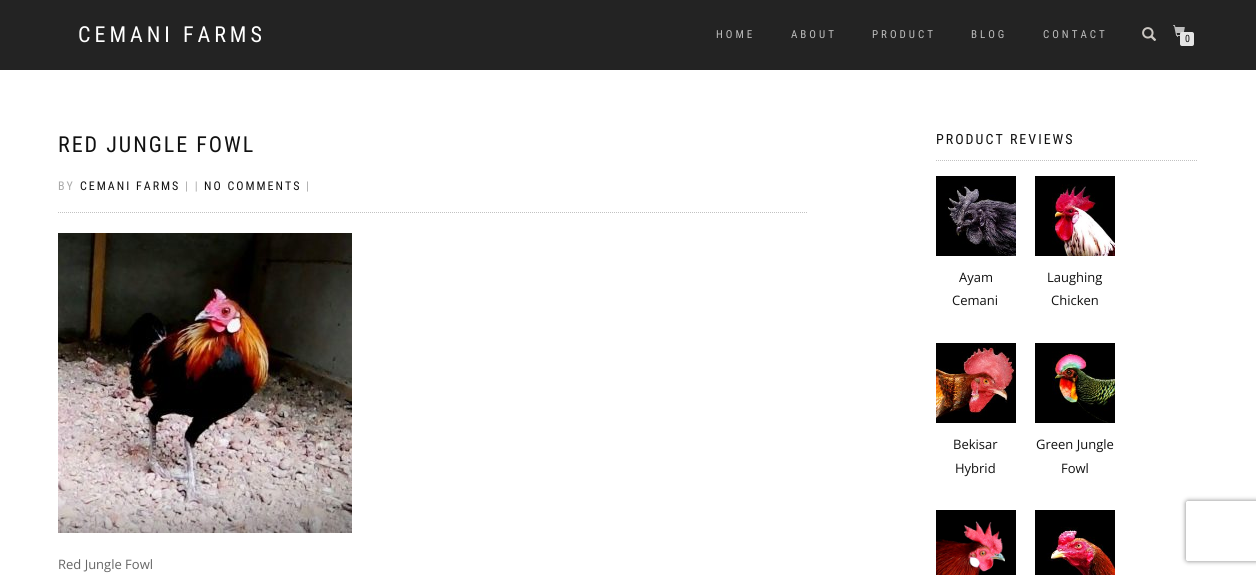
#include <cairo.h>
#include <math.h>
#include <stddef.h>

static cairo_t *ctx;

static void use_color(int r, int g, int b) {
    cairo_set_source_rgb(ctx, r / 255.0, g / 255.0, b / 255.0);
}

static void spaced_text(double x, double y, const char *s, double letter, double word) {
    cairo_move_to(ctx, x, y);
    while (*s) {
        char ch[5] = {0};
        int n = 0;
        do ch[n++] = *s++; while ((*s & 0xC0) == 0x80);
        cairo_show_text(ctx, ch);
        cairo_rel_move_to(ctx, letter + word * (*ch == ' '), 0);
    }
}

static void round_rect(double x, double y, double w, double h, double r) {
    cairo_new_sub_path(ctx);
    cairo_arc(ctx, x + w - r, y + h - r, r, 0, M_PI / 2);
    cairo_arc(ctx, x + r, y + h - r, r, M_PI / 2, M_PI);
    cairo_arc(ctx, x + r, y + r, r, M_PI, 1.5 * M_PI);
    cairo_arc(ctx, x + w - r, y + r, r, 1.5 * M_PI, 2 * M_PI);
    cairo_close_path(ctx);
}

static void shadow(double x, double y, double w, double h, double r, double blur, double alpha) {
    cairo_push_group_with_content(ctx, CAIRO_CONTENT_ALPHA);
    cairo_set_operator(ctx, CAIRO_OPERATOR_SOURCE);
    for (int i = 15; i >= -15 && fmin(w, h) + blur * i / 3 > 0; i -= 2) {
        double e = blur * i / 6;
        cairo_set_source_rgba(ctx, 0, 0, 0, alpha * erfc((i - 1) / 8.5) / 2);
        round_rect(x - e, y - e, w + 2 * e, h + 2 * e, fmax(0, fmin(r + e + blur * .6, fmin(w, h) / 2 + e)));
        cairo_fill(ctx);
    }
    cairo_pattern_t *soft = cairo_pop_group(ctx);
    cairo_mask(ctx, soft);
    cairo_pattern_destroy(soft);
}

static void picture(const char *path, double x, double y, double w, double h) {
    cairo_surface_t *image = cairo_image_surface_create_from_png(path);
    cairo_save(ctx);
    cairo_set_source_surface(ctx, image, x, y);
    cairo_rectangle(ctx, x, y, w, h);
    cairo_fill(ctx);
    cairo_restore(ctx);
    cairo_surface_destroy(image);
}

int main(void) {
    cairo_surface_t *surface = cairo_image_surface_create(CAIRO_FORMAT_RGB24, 1256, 575);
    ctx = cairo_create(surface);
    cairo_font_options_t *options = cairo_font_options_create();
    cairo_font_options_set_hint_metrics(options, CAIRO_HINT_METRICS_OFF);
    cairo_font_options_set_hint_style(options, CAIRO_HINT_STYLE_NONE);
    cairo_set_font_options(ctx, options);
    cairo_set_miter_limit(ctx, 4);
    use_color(255, 255, 255);
    cairo_paint(ctx);
    use_color(35, 35, 35);
    cairo_rectangle(ctx, 0, 0, 1256, 70);
    cairo_fill(ctx);
    cairo_select_font_face(ctx, "Roboto Condensed", CAIRO_FONT_SLANT_NORMAL, CAIRO_FONT_WEIGHT_NORMAL);
    cairo_set_font_size(ctx, 22);
    use_color(255, 255, 255);
    spaced_text(78, 42, "CEMANI FARMS", 4, 0);
    cairo_set_font_size(ctx, 11);
    use_color(189, 189, 189);
    spaced_text(716, 38, "HOME", 3, 0);
    spaced_text(791, 38, "ABOUT", 3, 0);
    spaced_text(872, 38, "PRODUCT", 3, 0);
    spaced_text(971, 38, "BLOG", 3, 0);
    spaced_text(1043, 38, "CONTACT", 3, 0);
    picture("img1.png", 1142, 27, 15, 14);
    picture("img2.png", 1173, 25, 12, 12);
    use_color(229, 229, 229);
    round_rect(1180, 32, 14, 14, 2);
    cairo_fill(ctx);
    cairo_set_font_size(ctx, 10);
    use_color(17, 17, 17);
    cairo_move_to(ctx, 1185, 42);
    cairo_show_text(ctx, "0");
    cairo_set_font_size(ctx, 22);
    spaced_text(58, 152, "RED JUNGLE FOWL", 2, 0);
    cairo_set_font_size(ctx, 12);
    use_color(170, 170, 170);
    spaced_text(58, 190, "BY", 2, 0);
    use_color(17, 17, 17);
    spaced_text(80, 190, "CEMANI FARMS", 2, 0);
    use_color(170, 170, 170);
    spaced_text(185, 190, "| |", 2, 0);
    use_color(17, 17, 17);
    spaced_text(204, 190, "NO COMMENTS", 2, 0);
    use_color(170, 170, 170);
    spaced_text(306, 190, "|", 2, 0);
    cairo_new_path(ctx);
    cairo_move_to(ctx, 58, 212.5);
    cairo_line_to(ctx, 808, 212.5);
    use_color(194, 194, 194);
    cairo_set_line_width(ctx, 1);
    cairo_set_dash(ctx, (double[]){1, 1}, 2, 0);
    cairo_stroke(ctx);
    picture("img3.png", 58, 233, 294, 300);
    cairo_select_font_face(ctx, "Open Sans", CAIRO_FONT_SLANT_NORMAL, CAIRO_FONT_WEIGHT_NORMAL);
    cairo_set_font_size(ctx, 13);
    use_color(102, 102, 102);
    cairo_move_to(ctx, 58, 569);
    cairo_show_text(ctx, "Red Jungle Fowl");
    cairo_new_path(ctx);
    cairo_move_to(ctx, 936, 160.5);
    cairo_line_to(ctx, 1198, 160.5);
    use_color(194, 194, 194);
    cairo_stroke(ctx);
    cairo_select_font_face(ctx, "Roboto Condensed", CAIRO_FONT_SLANT_NORMAL, CAIRO_FONT_WEIGHT_NORMAL);
    cairo_set_font_size(ctx, 14);
    use_color(17, 17, 17);
    spaced_text(936, 144, "PRODUCT REVIEWS", 2, 0);
    picture("img4.png", 936, 176, 80, 80);
    cairo_select_font_face(ctx, "Open Sans", CAIRO_FONT_SLANT_NORMAL, CAIRO_FONT_WEIGHT_NORMAL);
    cairo_set_font_size(ctx, 13);
    cairo_move_to(ctx, 959, 282);
    cairo_show_text(ctx, "Ayam");
    cairo_move_to(ctx, 952, 305);
    cairo_show_text(ctx, "Cemani");
    picture("img5.png", 1035, 176, 80, 80);
    cairo_move_to(ctx, 1047, 282);
    cairo_show_text(ctx, "Laughing");
    cairo_move_to(ctx, 1051, 305);
    cairo_show_text(ctx, "Chicken");
    picture("img6.png", 936, 343, 80, 80);
    cairo_move_to(ctx, 953, 449);
    cairo_show_text(ctx, "Bekisar");
    cairo_move_to(ctx, 955, 473);
    cairo_show_text(ctx, "Hybrid");
    picture("img7.png", 1035, 343, 80, 80);
    cairo_move_to(ctx, 1036, 449);
    cairo_show_text(ctx, "Green Jungle");
    cairo_move_to(ctx, 1061, 473);
    cairo_show_text(ctx, "Fowl");
    picture("img8.png", 936, 510, 80, 65);
    picture("img9.png", 1035, 510, 80, 65);
    cairo_save(ctx);
    cairo_set_fill_rule(ctx, CAIRO_FILL_RULE_EVEN_ODD);
    cairo_new_path(ctx);
    cairo_move_to(ctx, 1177, 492);
    cairo_line_to(ctx, 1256, 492);
    cairo_line_to(ctx, 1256, 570);
    cairo_line_to(ctx, 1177, 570);
    cairo_close_path(ctx);
    cairo_move_to(ctx, 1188, 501);
    cairo_line_to(ctx, 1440, 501);
    cairo_curve_to(ctx, 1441, 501, 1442, 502, 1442, 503);
    cairo_line_to(ctx, 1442, 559);
    cairo_curve_to(ctx, 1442, 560, 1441, 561, 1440, 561);
    cairo_line_to(ctx, 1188, 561);
    cairo_curve_to(ctx, 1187, 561, 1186, 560, 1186, 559);
    cairo_line_to(ctx, 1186, 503);
    cairo_curve_to(ctx, 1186, 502, 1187, 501, 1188, 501);
    cairo_close_path(ctx);
    cairo_clip(ctx);
    use_color(128, 128, 128);
    shadow(1186, 501, 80, 60, 2, 2.5, 1);
    cairo_restore(ctx);
    cairo_surface_write_to_png(surface, "result.png");
    cairo_font_options_destroy(options);
    cairo_destroy(ctx);
    cairo_surface_destroy(surface);
    return 0;
}
